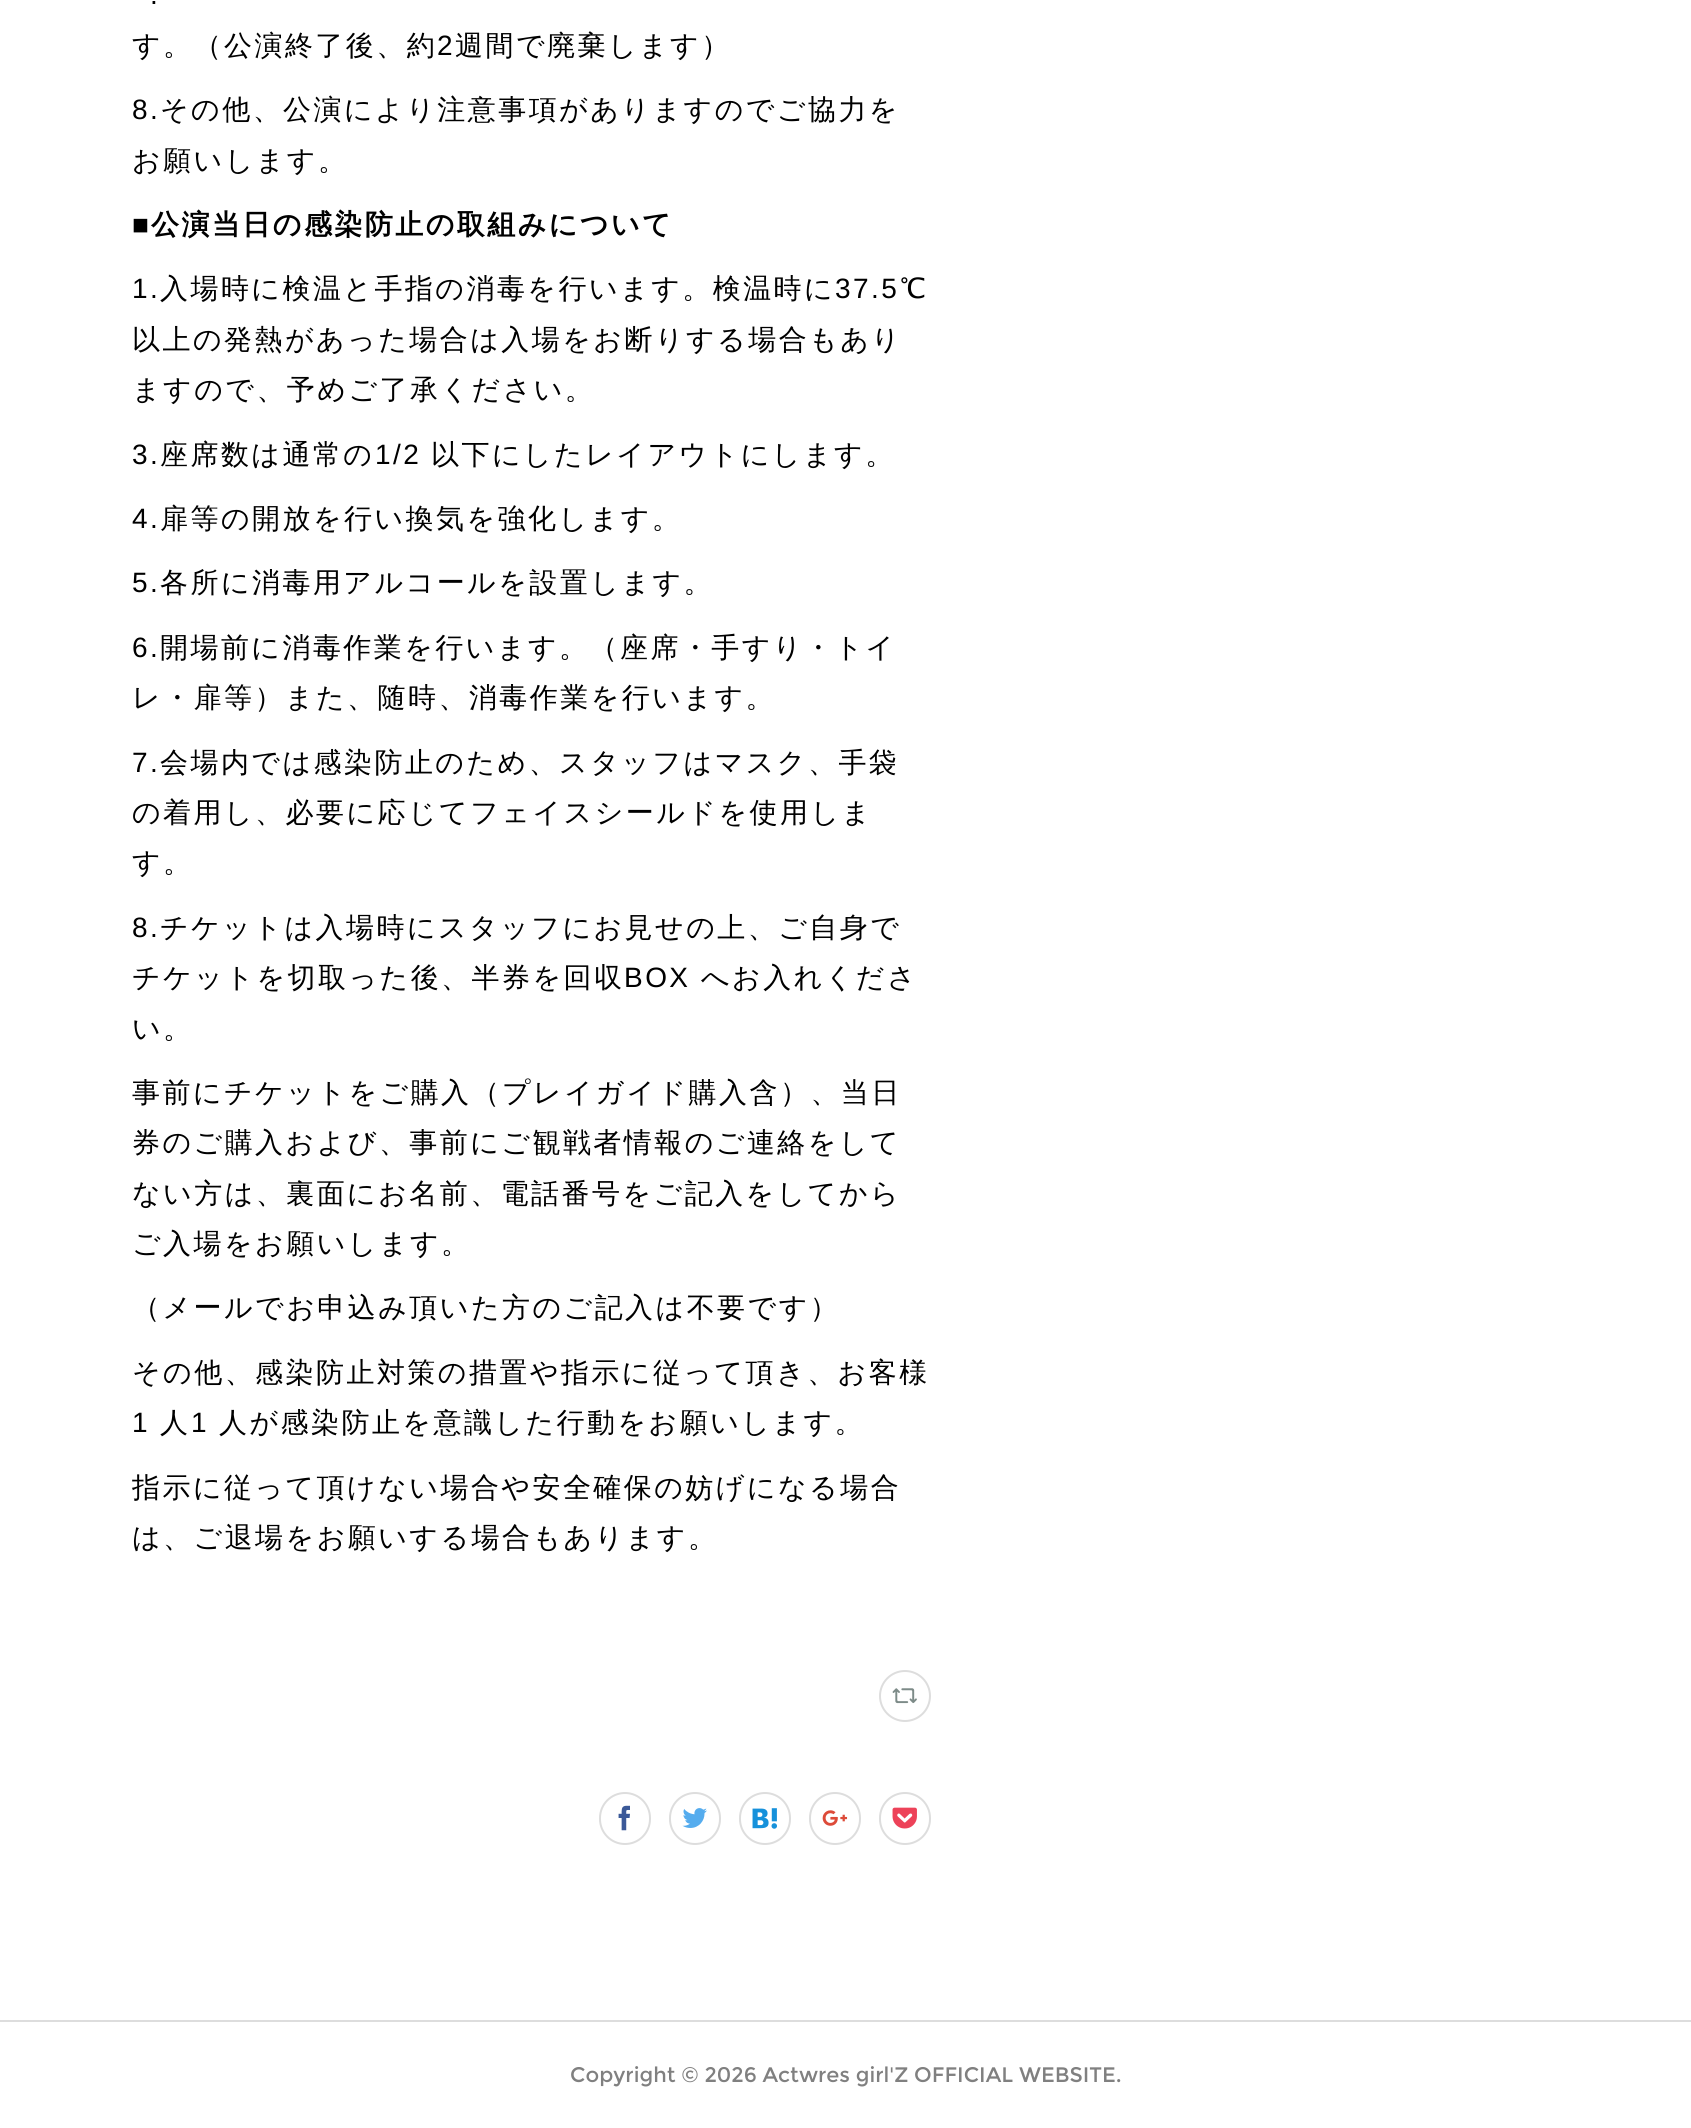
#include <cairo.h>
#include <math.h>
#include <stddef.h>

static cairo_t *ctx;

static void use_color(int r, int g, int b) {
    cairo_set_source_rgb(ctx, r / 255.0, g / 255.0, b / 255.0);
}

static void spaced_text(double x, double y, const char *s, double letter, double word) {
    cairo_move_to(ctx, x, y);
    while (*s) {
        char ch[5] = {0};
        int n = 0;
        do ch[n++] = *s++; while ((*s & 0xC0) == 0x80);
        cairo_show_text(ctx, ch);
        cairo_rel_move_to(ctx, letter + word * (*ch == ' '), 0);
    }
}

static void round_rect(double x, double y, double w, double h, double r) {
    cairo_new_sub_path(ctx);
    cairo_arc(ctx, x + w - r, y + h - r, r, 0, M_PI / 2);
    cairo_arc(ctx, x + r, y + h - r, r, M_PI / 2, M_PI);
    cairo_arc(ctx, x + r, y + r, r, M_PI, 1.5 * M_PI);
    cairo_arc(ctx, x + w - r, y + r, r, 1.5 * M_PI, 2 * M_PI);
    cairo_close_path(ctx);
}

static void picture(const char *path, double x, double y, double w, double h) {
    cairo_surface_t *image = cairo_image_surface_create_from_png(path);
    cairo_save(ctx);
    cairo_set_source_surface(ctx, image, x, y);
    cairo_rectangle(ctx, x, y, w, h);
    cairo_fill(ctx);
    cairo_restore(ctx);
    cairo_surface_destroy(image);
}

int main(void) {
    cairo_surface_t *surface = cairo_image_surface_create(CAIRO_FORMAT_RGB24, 1691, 2128);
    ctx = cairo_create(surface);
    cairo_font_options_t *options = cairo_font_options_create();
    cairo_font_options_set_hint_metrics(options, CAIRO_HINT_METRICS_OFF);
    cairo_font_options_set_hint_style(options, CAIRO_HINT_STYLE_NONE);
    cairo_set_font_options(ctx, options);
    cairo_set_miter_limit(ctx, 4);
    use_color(255, 255, 255);
    cairo_paint(ctx);
    cairo_select_font_face(ctx, "Liberation Sans", CAIRO_FONT_SLANT_NORMAL, CAIRO_FONT_WEIGHT_NORMAL);
    cairo_set_font_size(ctx, 28);
    use_color(0, 0, 0);
    spaced_text(150, 4, ".", 2.45, 0);
    cairo_select_font_face(ctx, "WenQuanYi Zen Hei Medium", CAIRO_FONT_SLANT_NORMAL, CAIRO_FONT_WEIGHT_NORMAL);
    spaced_text(132, 55, "す。（公演終了後、約", 2.45, 0);
    cairo_select_font_face(ctx, "Liberation Sans", CAIRO_FONT_SLANT_NORMAL, CAIRO_FONT_WEIGHT_NORMAL);
    spaced_text(437, 55, "2", 2.45, 0);
    cairo_select_font_face(ctx, "WenQuanYi Zen Hei Medium", CAIRO_FONT_SLANT_NORMAL, CAIRO_FONT_WEIGHT_NORMAL);
    spaced_text(455, 55, "週間で廃棄します）", 2.45, 0);
    cairo_select_font_face(ctx, "Liberation Sans", CAIRO_FONT_SLANT_NORMAL, CAIRO_FONT_WEIGHT_NORMAL);
    spaced_text(132, 119, "8.", 2.45, 0);
    cairo_select_font_face(ctx, "WenQuanYi Zen Hei Medium", CAIRO_FONT_SLANT_NORMAL, CAIRO_FONT_WEIGHT_NORMAL);
    spaced_text(160, 119, "その他、公演により注意事項がありますのでご協力を", 2.45, 0);
    spaced_text(132, 170, "お願いします。", 2.45, 0);
    cairo_select_font_face(ctx, "Liberation Sans", CAIRO_FONT_SLANT_NORMAL, CAIRO_FONT_WEIGHT_BOLD);
    spaced_text(132, 234, "■", 2.45, 0);
    cairo_select_font_face(ctx, "WenQuanYi Zen Hei", CAIRO_FONT_SLANT_NORMAL, CAIRO_FONT_WEIGHT_BOLD);
    spaced_text(151, 234, "公演当日の感染防止の取組みについて", 2.45, 0);
    cairo_select_font_face(ctx, "Liberation Sans", CAIRO_FONT_SLANT_NORMAL, CAIRO_FONT_WEIGHT_NORMAL);
    spaced_text(132, 298, "1.", 2.45, 0);
    cairo_select_font_face(ctx, "WenQuanYi Zen Hei Medium", CAIRO_FONT_SLANT_NORMAL, CAIRO_FONT_WEIGHT_NORMAL);
    spaced_text(160, 298, "入場時に検温と手指の消毒を行います。検温時に", 2.45, 0);
    cairo_select_font_face(ctx, "Liberation Sans", CAIRO_FONT_SLANT_NORMAL, CAIRO_FONT_WEIGHT_NORMAL);
    spaced_text(835, 298, "37.5", 2.45, 0);
    cairo_select_font_face(ctx, "WenQuanYi Zen Hei Medium", CAIRO_FONT_SLANT_NORMAL, CAIRO_FONT_WEIGHT_NORMAL);
    spaced_text(900, 298, "℃", 2.45, 0);
    spaced_text(132, 349, "以上の発熱があった場合は入場をお断りする場合もあり", 2.45, 0);
    spaced_text(132, 399, "ますので、予めご了承ください。", 2.45, 0);
    cairo_select_font_face(ctx, "Liberation Sans", CAIRO_FONT_SLANT_NORMAL, CAIRO_FONT_WEIGHT_NORMAL);
    spaced_text(132, 464, "3.", 2.45, 0);
    cairo_select_font_face(ctx, "WenQuanYi Zen Hei Medium", CAIRO_FONT_SLANT_NORMAL, CAIRO_FONT_WEIGHT_NORMAL);
    spaced_text(160, 464, "座席数は通常の", 2.45, 0);
    cairo_select_font_face(ctx, "Liberation Sans", CAIRO_FONT_SLANT_NORMAL, CAIRO_FONT_WEIGHT_NORMAL);
    spaced_text(375, 464, "1/2", 2.45, 0);
    cairo_select_font_face(ctx, "WenQuanYi Zen Hei Medium", CAIRO_FONT_SLANT_NORMAL, CAIRO_FONT_WEIGHT_NORMAL);
    spaced_text(431, 464, "以下にしたレイアウトにします。", 2.45, 0);
    cairo_select_font_face(ctx, "Liberation Sans", CAIRO_FONT_SLANT_NORMAL, CAIRO_FONT_WEIGHT_NORMAL);
    spaced_text(132, 528, "4.", 2.45, 0);
    cairo_select_font_face(ctx, "WenQuanYi Zen Hei Medium", CAIRO_FONT_SLANT_NORMAL, CAIRO_FONT_WEIGHT_NORMAL);
    spaced_text(160, 528, "扉等の開放を行い換気を強化します。", 2.45, 0);
    cairo_select_font_face(ctx, "Liberation Sans", CAIRO_FONT_SLANT_NORMAL, CAIRO_FONT_WEIGHT_NORMAL);
    spaced_text(132, 592, "5.", 2.45, 0);
    cairo_select_font_face(ctx, "WenQuanYi Zen Hei Medium", CAIRO_FONT_SLANT_NORMAL, CAIRO_FONT_WEIGHT_NORMAL);
    spaced_text(160, 592, "各所に消毒用アルコールを設置します。", 2.45, 0);
    cairo_select_font_face(ctx, "Liberation Sans", CAIRO_FONT_SLANT_NORMAL, CAIRO_FONT_WEIGHT_NORMAL);
    spaced_text(132, 657, "6.", 2.45, 0);
    cairo_select_font_face(ctx, "WenQuanYi Zen Hei Medium", CAIRO_FONT_SLANT_NORMAL, CAIRO_FONT_WEIGHT_NORMAL);
    spaced_text(160, 657, "開場前に消毒作業を行います。（座席・手すり・トイ", 2.45, 0);
    spaced_text(132, 707, "レ・扉等）また、随時、消毒作業を行います。", 2.45, 0);
    cairo_select_font_face(ctx, "Liberation Sans", CAIRO_FONT_SLANT_NORMAL, CAIRO_FONT_WEIGHT_NORMAL);
    spaced_text(132, 772, "7.", 2.45, 0);
    cairo_select_font_face(ctx, "WenQuanYi Zen Hei Medium", CAIRO_FONT_SLANT_NORMAL, CAIRO_FONT_WEIGHT_NORMAL);
    spaced_text(160, 772, "会場内では感染防止のため、スタッフはマスク、手袋", 2.45, 0);
    spaced_text(132, 822, "の着用し、必要に応じてフェイスシールドを使用しま", 2.45, 0);
    spaced_text(132, 872, "す。", 2.45, 0);
    cairo_select_font_face(ctx, "Liberation Sans", CAIRO_FONT_SLANT_NORMAL, CAIRO_FONT_WEIGHT_NORMAL);
    spaced_text(132, 937, "8.", 2.45, 0);
    cairo_select_font_face(ctx, "WenQuanYi Zen Hei Medium", CAIRO_FONT_SLANT_NORMAL, CAIRO_FONT_WEIGHT_NORMAL);
    spaced_text(160, 937, "チケットは入場時にスタッフにお見せの上、ご自身で", 2.45, 0);
    spaced_text(132, 987, "チケットを切取った後、半券を回収", 2.45, 0);
    cairo_select_font_face(ctx, "Liberation Sans", CAIRO_FONT_SLANT_NORMAL, CAIRO_FONT_WEIGHT_NORMAL);
    spaced_text(624, 987, "BOX", 2.45, 0);
    cairo_select_font_face(ctx, "WenQuanYi Zen Hei Medium", CAIRO_FONT_SLANT_NORMAL, CAIRO_FONT_WEIGHT_NORMAL);
    spaced_text(701, 987, "へお入れくださ", 2.45, 0);
    spaced_text(132, 1038, "い。", 2.45, 0);
    spaced_text(132, 1102, "事前にチケットをご購入（プレイガイド購入含）、当日", 2.45, 0);
    spaced_text(132, 1152, "券のご購入および、事前にご観戦者情報のご連絡をして", 2.45, 0);
    spaced_text(132, 1203, "ない方は、裏面にお名前、電話番号をご記入をしてから", 2.45, 0);
    spaced_text(132, 1253, "ご入場をお願いします。", 2.45, 0);
    spaced_text(132, 1317, "（メールでお申込み頂いた方のご記入は不要です）", 2.45, 0);
    spaced_text(132, 1382, "その他、感染防止対策の措置や指示に従って頂き、お客様", 2.45, 0);
    cairo_select_font_face(ctx, "Liberation Sans", CAIRO_FONT_SLANT_NORMAL, CAIRO_FONT_WEIGHT_NORMAL);
    spaced_text(132, 1432, "1", 2.45, 0);
    cairo_select_font_face(ctx, "WenQuanYi Zen Hei Medium", CAIRO_FONT_SLANT_NORMAL, CAIRO_FONT_WEIGHT_NORMAL);
    spaced_text(160, 1432, "人", 2.45, 0);
    cairo_select_font_face(ctx, "Liberation Sans", CAIRO_FONT_SLANT_NORMAL, CAIRO_FONT_WEIGHT_NORMAL);
    spaced_text(191, 1432, "1", 2.45, 0);
    cairo_select_font_face(ctx, "WenQuanYi Zen Hei Medium", CAIRO_FONT_SLANT_NORMAL, CAIRO_FONT_WEIGHT_NORMAL);
    spaced_text(219, 1432, "人が感染防止を意識した行動をお願いします。", 2.45, 0);
    spaced_text(132, 1497, "指示に従って頂けない場合や安全確保の妨げになる場合", 2.45, 0);
    spaced_text(132, 1547, "は、ご退場をお願いする場合もあります。", 2.45, 0);
    cairo_new_path(ctx);
    cairo_arc(ctx, 905, 1696, 25, 0, 2 * M_PI);
    use_color(221, 221, 221);
    cairo_stroke(ctx);
    picture("img1.png", 892, 1688, 25, 16);
    round_rect(600, 1793, 50, 51, 25);
    cairo_stroke(ctx);
    picture("img2.png", 618, 1805, 12, 26);
    round_rect(670, 1793, 50, 51, 25);
    cairo_stroke(ctx);
    picture("img3.png", 682, 1808, 25, 20);
    round_rect(740, 1793, 50, 51, 25);
    cairo_stroke(ctx);
    picture("img4.png", 752, 1808, 25, 21);
    round_rect(810, 1793, 50, 51, 25);
    cairo_stroke(ctx);
    picture("img5.png", 822, 1810, 26, 16);
    round_rect(880, 1793, 50, 51, 25);
    cairo_stroke(ctx);
    picture("img6.png", 892, 1807, 25, 22);
    cairo_rectangle(ctx, 0, 2020, 1691, 2);
    cairo_fill(ctx);
    cairo_select_font_face(ctx, "Montserrat", CAIRO_FONT_SLANT_NORMAL, CAIRO_FONT_WEIGHT_NORMAL);
    cairo_set_font_size(ctx, 21);
    use_color(128, 128, 128);
    cairo_move_to(ctx, 570, 2082);
    cairo_show_text(ctx, "Copyright © 2026 Actwres girl'Z OFFICIAL WEBSITE.");
    cairo_surface_write_to_png(surface, "result.png");
    cairo_font_options_destroy(options);
    cairo_destroy(ctx);
    cairo_surface_destroy(surface);
    return 0;
}
